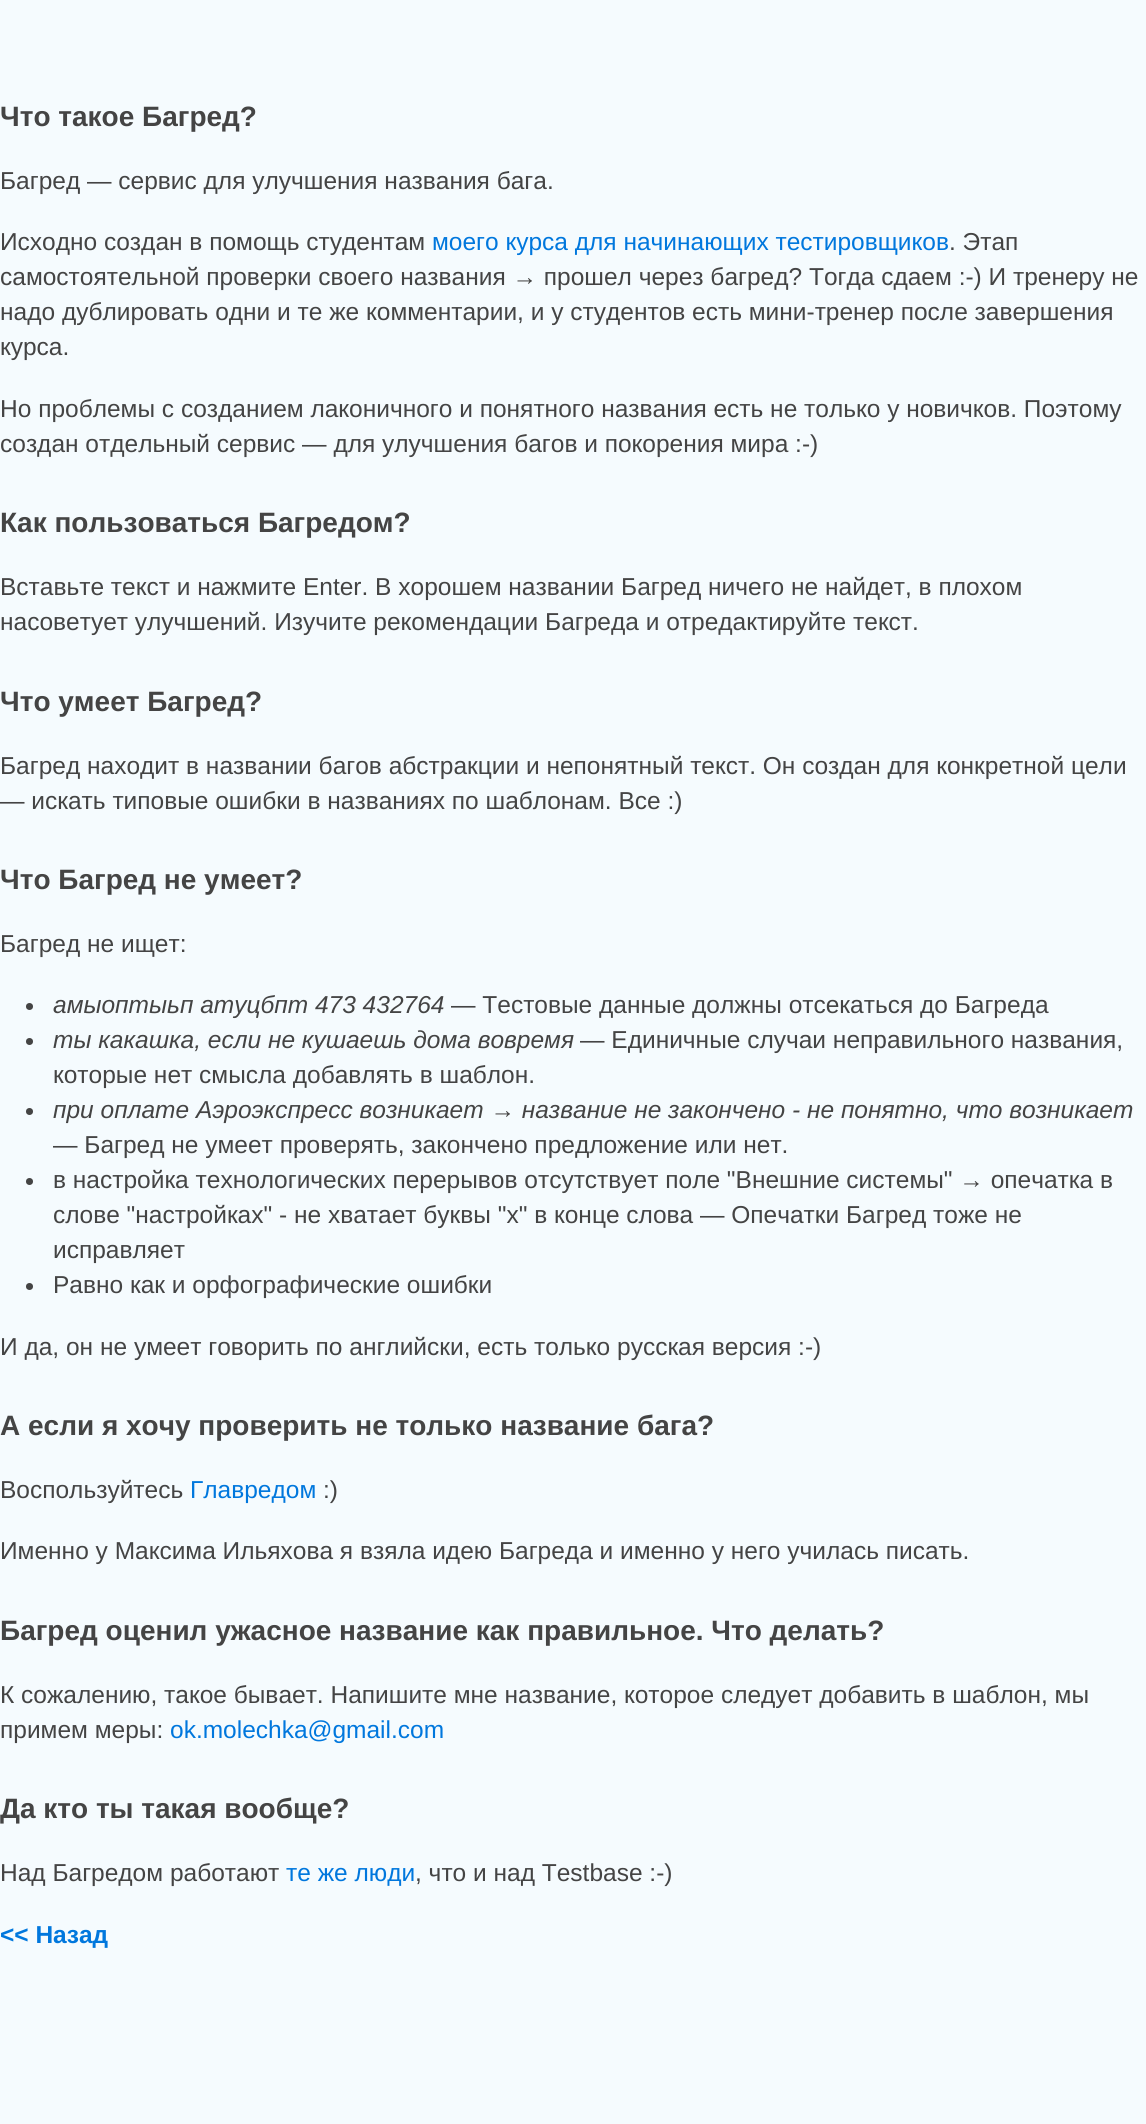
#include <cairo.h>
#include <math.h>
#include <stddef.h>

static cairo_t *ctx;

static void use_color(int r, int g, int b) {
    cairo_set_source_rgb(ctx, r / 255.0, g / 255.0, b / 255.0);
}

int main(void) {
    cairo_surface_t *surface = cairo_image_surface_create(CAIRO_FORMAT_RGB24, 1146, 2124);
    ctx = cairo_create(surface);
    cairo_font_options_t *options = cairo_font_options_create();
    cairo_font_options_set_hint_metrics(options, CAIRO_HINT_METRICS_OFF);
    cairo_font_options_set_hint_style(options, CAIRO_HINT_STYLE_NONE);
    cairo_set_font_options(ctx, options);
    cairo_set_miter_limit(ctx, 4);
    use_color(245, 251, 254);
    cairo_paint(ctx);
    cairo_select_font_face(ctx, "Liberation Sans", CAIRO_FONT_SLANT_NORMAL, CAIRO_FONT_WEIGHT_BOLD);
    cairo_set_font_size(ctx, 28);
    use_color(68, 68, 68);
    cairo_move_to(ctx, 0, 126);
    cairo_show_text(ctx, "Что такое Багред?");
    cairo_select_font_face(ctx, "Liberation Sans", CAIRO_FONT_SLANT_NORMAL, CAIRO_FONT_WEIGHT_NORMAL);
    cairo_set_font_size(ctx, 24.5);
    cairo_move_to(ctx, 0, 189);
    cairo_show_text(ctx, "Багред — сервис для улучшения названия бага.");
    cairo_move_to(ctx, 0, 250);
    cairo_show_text(ctx, "Исходно создан в помощь студентам");
    use_color(0, 119, 221);
    cairo_move_to(ctx, 432, 250);
    cairo_show_text(ctx, "моего курса для начинающих тестировщиков");
    use_color(68, 68, 68);
    cairo_move_to(ctx, 949, 250);
    cairo_show_text(ctx, ". Этап");
    cairo_move_to(ctx, 0, 285);
    cairo_show_text(ctx, "самостоятельной проверки своего названия → прошел через багред? Тогда сдаем :-) И тренеру не");
    cairo_move_to(ctx, 0, 320);
    cairo_show_text(ctx, "надо дублировать одни и те же комментарии, и у студентов есть мини-тренер после завершения");
    cairo_move_to(ctx, 0, 355);
    cairo_show_text(ctx, "курса.");
    cairo_move_to(ctx, 0, 417);
    cairo_show_text(ctx, "Но проблемы с созданием лаконичного и понятного названия есть не только у новичков. Поэтому");
    cairo_move_to(ctx, 0, 452);
    cairo_show_text(ctx, "создан отдельный сервис — для улучшения багов и покорения мира :-)");
    cairo_select_font_face(ctx, "Liberation Sans", CAIRO_FONT_SLANT_NORMAL, CAIRO_FONT_WEIGHT_BOLD);
    cairo_set_font_size(ctx, 28);
    cairo_move_to(ctx, 0, 532);
    cairo_show_text(ctx, "Как пользоваться Багредом?");
    cairo_select_font_face(ctx, "Liberation Sans", CAIRO_FONT_SLANT_NORMAL, CAIRO_FONT_WEIGHT_NORMAL);
    cairo_set_font_size(ctx, 24.5);
    cairo_move_to(ctx, 0, 595);
    cairo_show_text(ctx, "Вставьте текст и нажмите Enter. В хорошем названии Багред ничего не найдет, в плохом");
    cairo_move_to(ctx, 0, 630);
    cairo_show_text(ctx, "насоветует улучшений. Изучите рекомендации Багреда и отредактируйте текст.");
    cairo_select_font_face(ctx, "Liberation Sans", CAIRO_FONT_SLANT_NORMAL, CAIRO_FONT_WEIGHT_BOLD);
    cairo_set_font_size(ctx, 28);
    cairo_move_to(ctx, 0, 711);
    cairo_show_text(ctx, "Что умеет Багред?");
    cairo_select_font_face(ctx, "Liberation Sans", CAIRO_FONT_SLANT_NORMAL, CAIRO_FONT_WEIGHT_NORMAL);
    cairo_set_font_size(ctx, 24.5);
    cairo_move_to(ctx, 0, 774);
    cairo_show_text(ctx, "Багред находит в названии багов абстракции и непонятный текст. Он создан для конкретной цели");
    cairo_move_to(ctx, 0, 809);
    cairo_show_text(ctx, "— искать типовые ошибки в названиях по шаблонам. Все :)");
    cairo_select_font_face(ctx, "Liberation Sans", CAIRO_FONT_SLANT_NORMAL, CAIRO_FONT_WEIGHT_BOLD);
    cairo_set_font_size(ctx, 28);
    cairo_move_to(ctx, 0, 889);
    cairo_show_text(ctx, "Что Багред не умеет?");
    cairo_select_font_face(ctx, "Liberation Sans", CAIRO_FONT_SLANT_NORMAL, CAIRO_FONT_WEIGHT_NORMAL);
    cairo_set_font_size(ctx, 24.5);
    cairo_move_to(ctx, 0, 952);
    cairo_show_text(ctx, "Багред не ищет:");
    cairo_new_path(ctx);
    cairo_arc(ctx, 29.5, 1006.5, 3.5, 0, 2 * M_PI);
    cairo_fill(ctx);
    cairo_select_font_face(ctx, "Liberation Sans", CAIRO_FONT_SLANT_ITALIC, CAIRO_FONT_WEIGHT_NORMAL);
    cairo_move_to(ctx, 53, 1013);
    cairo_show_text(ctx, "амыоптыьп атуцбпт 473 432764");
    cairo_select_font_face(ctx, "Liberation Sans", CAIRO_FONT_SLANT_NORMAL, CAIRO_FONT_WEIGHT_NORMAL);
    cairo_move_to(ctx, 451, 1013);
    cairo_show_text(ctx, "— Тестовые данные должны отсекаться до Багреда");
    cairo_new_path(ctx);
    cairo_arc(ctx, 29.5, 1041.5, 3.5, 0, 2 * M_PI);
    cairo_fill(ctx);
    cairo_select_font_face(ctx, "Liberation Sans", CAIRO_FONT_SLANT_ITALIC, CAIRO_FONT_WEIGHT_NORMAL);
    cairo_move_to(ctx, 53, 1048);
    cairo_show_text(ctx, "ты какашка, если не кушаешь дома вовремя");
    cairo_select_font_face(ctx, "Liberation Sans", CAIRO_FONT_SLANT_NORMAL, CAIRO_FONT_WEIGHT_NORMAL);
    cairo_move_to(ctx, 580, 1048);
    cairo_show_text(ctx, "— Единичные случаи неправильного названия,");
    cairo_move_to(ctx, 53, 1083);
    cairo_show_text(ctx, "которые нет смысла добавлять в шаблон.");
    cairo_new_path(ctx);
    cairo_arc(ctx, 29.5, 1111.5, 3.5, 0, 2 * M_PI);
    cairo_fill(ctx);
    cairo_select_font_face(ctx, "Liberation Sans", CAIRO_FONT_SLANT_ITALIC, CAIRO_FONT_WEIGHT_NORMAL);
    cairo_move_to(ctx, 53, 1118);
    cairo_show_text(ctx, "при оплате Аэроэкспресс возникает → название не закончено - не понятно, что возникает");
    cairo_select_font_face(ctx, "Liberation Sans", CAIRO_FONT_SLANT_NORMAL, CAIRO_FONT_WEIGHT_NORMAL);
    cairo_move_to(ctx, 53, 1153);
    cairo_show_text(ctx, "— Багред не умеет проверять, закончено предложение или нет.");
    cairo_new_path(ctx);
    cairo_arc(ctx, 29.5, 1181.5, 3.5, 0, 2 * M_PI);
    cairo_fill(ctx);
    cairo_move_to(ctx, 53, 1188);
    cairo_show_text(ctx, "в настройка технологических перерывов отсутствует поле \"Внешние системы\" → опечатка в");
    cairo_move_to(ctx, 53, 1223);
    cairo_show_text(ctx, "слове \"настройках\" - не хватает буквы \"х\" в конце слова — Опечатки Багред тоже не");
    cairo_move_to(ctx, 53, 1258);
    cairo_show_text(ctx, "исправляет");
    cairo_new_path(ctx);
    cairo_arc(ctx, 29.5, 1286.5, 3.5, 0, 2 * M_PI);
    cairo_fill(ctx);
    cairo_move_to(ctx, 53, 1293);
    cairo_show_text(ctx, "Равно как и орфографические ошибки");
    cairo_move_to(ctx, 0, 1355);
    cairo_show_text(ctx, "И да, он не умеет говорить по английски, есть только русская версия :-)");
    cairo_select_font_face(ctx, "Liberation Sans", CAIRO_FONT_SLANT_NORMAL, CAIRO_FONT_WEIGHT_BOLD);
    cairo_set_font_size(ctx, 28);
    cairo_move_to(ctx, 0, 1435);
    cairo_show_text(ctx, "А если я хочу проверить не только название бага?");
    cairo_select_font_face(ctx, "Liberation Sans", CAIRO_FONT_SLANT_NORMAL, CAIRO_FONT_WEIGHT_NORMAL);
    cairo_set_font_size(ctx, 24.5);
    cairo_move_to(ctx, 0, 1498);
    cairo_show_text(ctx, "Воспользуйтесь");
    use_color(0, 119, 221);
    cairo_move_to(ctx, 190, 1498);
    cairo_show_text(ctx, "Главредом");
    use_color(68, 68, 68);
    cairo_move_to(ctx, 323, 1498);
    cairo_show_text(ctx, ":)");
    cairo_move_to(ctx, 0, 1559);
    cairo_show_text(ctx, "Именно у Максима Ильяхова я взяла идею Багреда и именно у него училась писать.");
    cairo_select_font_face(ctx, "Liberation Sans", CAIRO_FONT_SLANT_NORMAL, CAIRO_FONT_WEIGHT_BOLD);
    cairo_set_font_size(ctx, 28);
    cairo_move_to(ctx, 0, 1640);
    cairo_show_text(ctx, "Багред оценил ужасное название как правильное. Что делать?");
    cairo_select_font_face(ctx, "Liberation Sans", CAIRO_FONT_SLANT_NORMAL, CAIRO_FONT_WEIGHT_NORMAL);
    cairo_set_font_size(ctx, 24.5);
    cairo_move_to(ctx, 0, 1703);
    cairo_show_text(ctx, "К сожалению, такое бывает. Напишите мне название, которое следует добавить в шаблон, мы");
    cairo_move_to(ctx, 0, 1738);
    cairo_show_text(ctx, "примем меры:");
    use_color(0, 119, 221);
    cairo_move_to(ctx, 170, 1738);
    cairo_show_text(ctx, "ok.molechka@gmail.com");
    cairo_select_font_face(ctx, "Liberation Sans", CAIRO_FONT_SLANT_NORMAL, CAIRO_FONT_WEIGHT_BOLD);
    cairo_set_font_size(ctx, 28);
    use_color(68, 68, 68);
    cairo_move_to(ctx, 0, 1818);
    cairo_show_text(ctx, "Да кто ты такая вообще?");
    cairo_select_font_face(ctx, "Liberation Sans", CAIRO_FONT_SLANT_NORMAL, CAIRO_FONT_WEIGHT_NORMAL);
    cairo_set_font_size(ctx, 24.5);
    cairo_move_to(ctx, 0, 1881);
    cairo_show_text(ctx, "Над Багредом работают");
    use_color(0, 119, 221);
    cairo_move_to(ctx, 286, 1881);
    cairo_show_text(ctx, "те же люди");
    use_color(68, 68, 68);
    cairo_move_to(ctx, 415, 1881);
    cairo_show_text(ctx, ", что и над Testbase :-)");
    cairo_select_font_face(ctx, "Liberation Sans", CAIRO_FONT_SLANT_NORMAL, CAIRO_FONT_WEIGHT_BOLD);
    use_color(0, 119, 221);
    cairo_move_to(ctx, 0, 1943);
    cairo_show_text(ctx, "<< Назад");
    cairo_surface_write_to_png(surface, "result.png");
    cairo_font_options_destroy(options);
    cairo_destroy(ctx);
    cairo_surface_destroy(surface);
    return 0;
}
